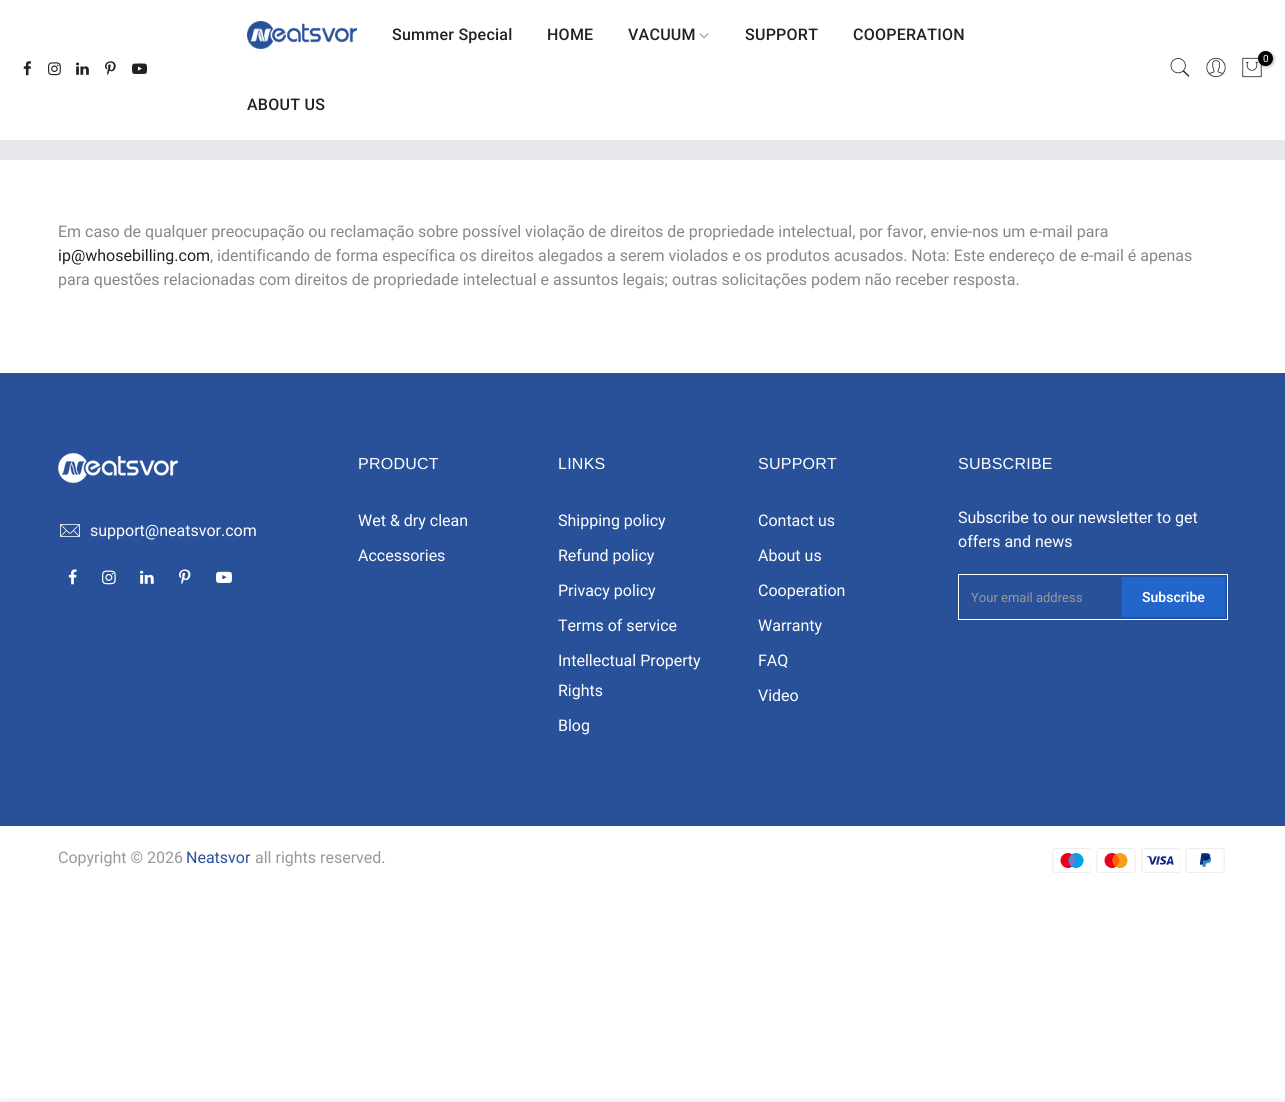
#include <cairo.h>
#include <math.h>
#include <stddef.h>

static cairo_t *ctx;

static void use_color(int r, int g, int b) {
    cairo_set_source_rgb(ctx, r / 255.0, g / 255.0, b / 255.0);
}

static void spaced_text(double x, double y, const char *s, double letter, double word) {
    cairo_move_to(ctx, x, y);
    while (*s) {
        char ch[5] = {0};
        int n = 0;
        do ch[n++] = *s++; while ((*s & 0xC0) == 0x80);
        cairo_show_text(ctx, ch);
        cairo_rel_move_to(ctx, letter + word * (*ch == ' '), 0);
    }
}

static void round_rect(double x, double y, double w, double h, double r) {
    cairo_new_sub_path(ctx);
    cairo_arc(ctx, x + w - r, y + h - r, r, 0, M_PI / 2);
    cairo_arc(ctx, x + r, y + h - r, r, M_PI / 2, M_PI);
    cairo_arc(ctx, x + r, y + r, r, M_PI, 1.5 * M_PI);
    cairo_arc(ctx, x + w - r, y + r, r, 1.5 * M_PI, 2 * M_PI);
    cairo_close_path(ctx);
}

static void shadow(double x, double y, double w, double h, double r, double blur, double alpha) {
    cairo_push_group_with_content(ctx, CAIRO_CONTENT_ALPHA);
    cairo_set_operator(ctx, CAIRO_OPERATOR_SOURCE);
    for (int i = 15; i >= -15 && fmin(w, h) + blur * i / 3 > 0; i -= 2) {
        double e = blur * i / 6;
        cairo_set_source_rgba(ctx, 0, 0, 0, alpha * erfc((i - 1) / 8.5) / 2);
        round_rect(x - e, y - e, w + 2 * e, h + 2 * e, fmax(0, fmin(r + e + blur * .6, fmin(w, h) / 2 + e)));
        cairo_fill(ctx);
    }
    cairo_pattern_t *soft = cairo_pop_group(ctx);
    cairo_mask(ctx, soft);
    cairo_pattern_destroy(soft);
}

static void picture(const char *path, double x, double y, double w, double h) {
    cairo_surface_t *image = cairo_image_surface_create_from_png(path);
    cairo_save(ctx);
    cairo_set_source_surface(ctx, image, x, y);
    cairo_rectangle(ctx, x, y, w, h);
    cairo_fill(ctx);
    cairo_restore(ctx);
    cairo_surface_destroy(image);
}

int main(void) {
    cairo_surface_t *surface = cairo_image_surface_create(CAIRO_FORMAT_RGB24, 1285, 1102);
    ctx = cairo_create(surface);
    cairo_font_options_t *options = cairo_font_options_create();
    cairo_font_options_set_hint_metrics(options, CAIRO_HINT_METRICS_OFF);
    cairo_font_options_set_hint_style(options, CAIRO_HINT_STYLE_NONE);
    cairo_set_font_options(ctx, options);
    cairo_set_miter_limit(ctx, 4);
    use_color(255, 255, 255);
    cairo_paint(ctx);
    picture("img1.png", 247, 21, 110, 28);
    cairo_select_font_face(ctx, "Roboto Medium", CAIRO_FONT_SLANT_NORMAL, CAIRO_FONT_WEIGHT_NORMAL);
    cairo_set_font_size(ctx, 16);
    use_color(34, 34, 34);
    spaced_text(392, 40, "Summer Special", 0.25, 0);
    spaced_text(547, 40, "HOME", 0.25, 0);
    spaced_text(628, 40, "VACUUM", 0.25, 0);
    picture("img2.png", 699, 33, 10, 6);
    spaced_text(745, 40, "SUPPORT", 0.25, 0);
    spaced_text(853, 40, "COOPERATION", 0.25, 0);
    spaced_text(247, 110, "ABOUT US", 0.25, 0);
    picture("img3.png", 1170, 58, 20, 19);
    picture("img4.png", 1206, 57, 20, 21);
    picture("img5.png", 1242, 57, 20, 21);
    use_color(0, 0, 0);
    shadow(1259, 52, 15, 15, 7.5, 1.5, 0.3);
    use_color(0, 0, 0);
    cairo_arc(ctx, 1265.5, 58.5, 7.5, 0, 2 * M_PI);
    cairo_fill(ctx);
    cairo_select_font_face(ctx, "Roboto", CAIRO_FONT_SLANT_NORMAL, CAIRO_FONT_WEIGHT_NORMAL);
    cairo_set_font_size(ctx, 10);
    use_color(255, 255, 255);
    cairo_move_to(ctx, 1263, 62);
    cairo_show_text(ctx, "0");
    picture("img6.png", 23, 61, 9, 15);
    picture("img7.png", 48, 62, 13, 14);
    picture("img8.png", 76, 62, 13, 13);
    picture("img9.png", 105, 61, 11, 15);
    picture("img10.png", 132, 63, 15, 11);
    use_color(230, 232, 237);
    cairo_rectangle(ctx, 0, 140, 1285, 20);
    cairo_fill(ctx);
    cairo_set_font_size(ctx, 16);
    use_color(135, 135, 135);
    cairo_move_to(ctx, 58, 237);
    cairo_show_text(ctx, "Em caso de qualquer preocupação ou reclamação sobre possível violação de direitos de propriedade intelectual, por favor, envie-nos um e-mail para");
    use_color(34, 34, 34);
    cairo_move_to(ctx, 58, 261);
    cairo_show_text(ctx, "ip@whosebilling.com");
    use_color(135, 135, 135);
    cairo_move_to(ctx, 210, 261);
    cairo_show_text(ctx, ", identificando de forma específica os direitos alegados a serem violados e os produtos acusados. Nota: Este endereço de e-mail é apenas");
    cairo_move_to(ctx, 58, 285);
    cairo_show_text(ctx, "para questões relacionadas com direitos de propriedade intelectual e assuntos legais; outras solicitações podem não receber resposta.");
    use_color(40, 81, 154);
    cairo_rectangle(ctx, 0, 373, 1285, 453);
    cairo_fill(ctx);
    picture("img11.png", 58, 453, 120, 30);
    picture("img12.png", 60, 524, 20, 13);
    use_color(255, 255, 255);
    cairo_move_to(ctx, 90, 536);
    cairo_show_text(ctx, "support@neatsvor.com");
    picture("img13.png", 68, 569, 9, 16);
    picture("img14.png", 102, 570, 14, 15);
    picture("img15.png", 140, 570, 14, 14);
    picture("img16.png", 179, 569, 12, 16);
    picture("img17.png", 216, 571, 16, 12);
    cairo_select_font_face(ctx, "Liberation Sans", CAIRO_FONT_SLANT_NORMAL, CAIRO_FONT_WEIGHT_NORMAL);
    spaced_text(358, 469, "PRODUCT", 0.25, 0);
    cairo_select_font_face(ctx, "Roboto", CAIRO_FONT_SLANT_NORMAL, CAIRO_FONT_WEIGHT_NORMAL);
    cairo_move_to(ctx, 358, 526);
    cairo_show_text(ctx, "Wet & dry clean");
    cairo_move_to(ctx, 358, 561);
    cairo_show_text(ctx, "Accessories");
    cairo_select_font_face(ctx, "Liberation Sans", CAIRO_FONT_SLANT_NORMAL, CAIRO_FONT_WEIGHT_NORMAL);
    spaced_text(558, 469, "LINKS", 0.25, 0);
    cairo_select_font_face(ctx, "Roboto", CAIRO_FONT_SLANT_NORMAL, CAIRO_FONT_WEIGHT_NORMAL);
    cairo_move_to(ctx, 558, 526);
    cairo_show_text(ctx, "Shipping policy");
    cairo_move_to(ctx, 558, 561);
    cairo_show_text(ctx, "Refund policy");
    cairo_move_to(ctx, 558, 596);
    cairo_show_text(ctx, "Privacy policy");
    cairo_move_to(ctx, 558, 631);
    cairo_show_text(ctx, "Terms of service");
    cairo_move_to(ctx, 558, 666);
    cairo_show_text(ctx, "Intellectual Property");
    cairo_move_to(ctx, 558, 696);
    cairo_show_text(ctx, "Rights");
    cairo_move_to(ctx, 558, 731);
    cairo_show_text(ctx, "Blog");
    cairo_select_font_face(ctx, "Liberation Sans", CAIRO_FONT_SLANT_NORMAL, CAIRO_FONT_WEIGHT_NORMAL);
    spaced_text(758, 469, "SUPPORT", 0.25, 0);
    cairo_select_font_face(ctx, "Roboto", CAIRO_FONT_SLANT_NORMAL, CAIRO_FONT_WEIGHT_NORMAL);
    cairo_move_to(ctx, 758, 526);
    cairo_show_text(ctx, "Contact us");
    cairo_move_to(ctx, 758, 561);
    cairo_show_text(ctx, "About us");
    cairo_move_to(ctx, 758, 596);
    cairo_show_text(ctx, "Cooperation");
    cairo_move_to(ctx, 758, 631);
    cairo_show_text(ctx, "Warranty");
    cairo_move_to(ctx, 758, 666);
    cairo_show_text(ctx, "FAQ");
    cairo_move_to(ctx, 758, 701);
    cairo_show_text(ctx, "Video");
    cairo_select_font_face(ctx, "Liberation Sans", CAIRO_FONT_SLANT_NORMAL, CAIRO_FONT_WEIGHT_NORMAL);
    spaced_text(958, 469, "SUBSCRIBE", 0.25, 0);
    cairo_select_font_face(ctx, "Roboto", CAIRO_FONT_SLANT_NORMAL, CAIRO_FONT_WEIGHT_NORMAL);
    cairo_move_to(ctx, 958, 523);
    cairo_show_text(ctx, "Subscribe to our newsletter to get");
    cairo_move_to(ctx, 958, 547);
    cairo_show_text(ctx, "offers and news");
    cairo_rectangle(ctx, 958.5, 574.5, 269, 45);
    cairo_set_line_width(ctx, 1);
    cairo_stroke(ctx);
    cairo_set_font_size(ctx, 13);
    use_color(153, 153, 153);
    cairo_move_to(ctx, 971, 602);
    cairo_show_text(ctx, "Your email address");
    use_color(34, 102, 204);
    cairo_rectangle(ctx, 1122, 577, 103, 40);
    cairo_fill(ctx);
    cairo_select_font_face(ctx, "Roboto SemiBold", CAIRO_FONT_SLANT_NORMAL, CAIRO_FONT_WEIGHT_NORMAL);
    cairo_set_font_size(ctx, 14);
    use_color(255, 255, 255);
    cairo_move_to(ctx, 1142, 602);
    cairo_show_text(ctx, "Subscribe");
    cairo_select_font_face(ctx, "Roboto", CAIRO_FONT_SLANT_NORMAL, CAIRO_FONT_WEIGHT_NORMAL);
    cairo_set_font_size(ctx, 16);
    use_color(153, 153, 153);
    cairo_move_to(ctx, 58, 863);
    cairo_show_text(ctx, "Copyright © 2026");
    use_color(40, 81, 154);
    cairo_move_to(ctx, 186, 863);
    cairo_show_text(ctx, "Neatsvor");
    use_color(153, 153, 153);
    cairo_move_to(ctx, 255, 863);
    cairo_show_text(ctx, "all rights reserved.");
    picture("img18.png", 1052, 848, 39, 25);
    picture("img19.png", 1096, 848, 40, 25);
    picture("img20.png", 1141, 848, 39, 25);
    picture("img21.png", 1185, 848, 40, 25);
    use_color(0, 0, 0);
    shadow(0, 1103, 1285, 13, 0, 4.5, 0.14);
    cairo_surface_write_to_png(surface, "result.png");
    cairo_font_options_destroy(options);
    cairo_destroy(ctx);
    cairo_surface_destroy(surface);
    return 0;
}
